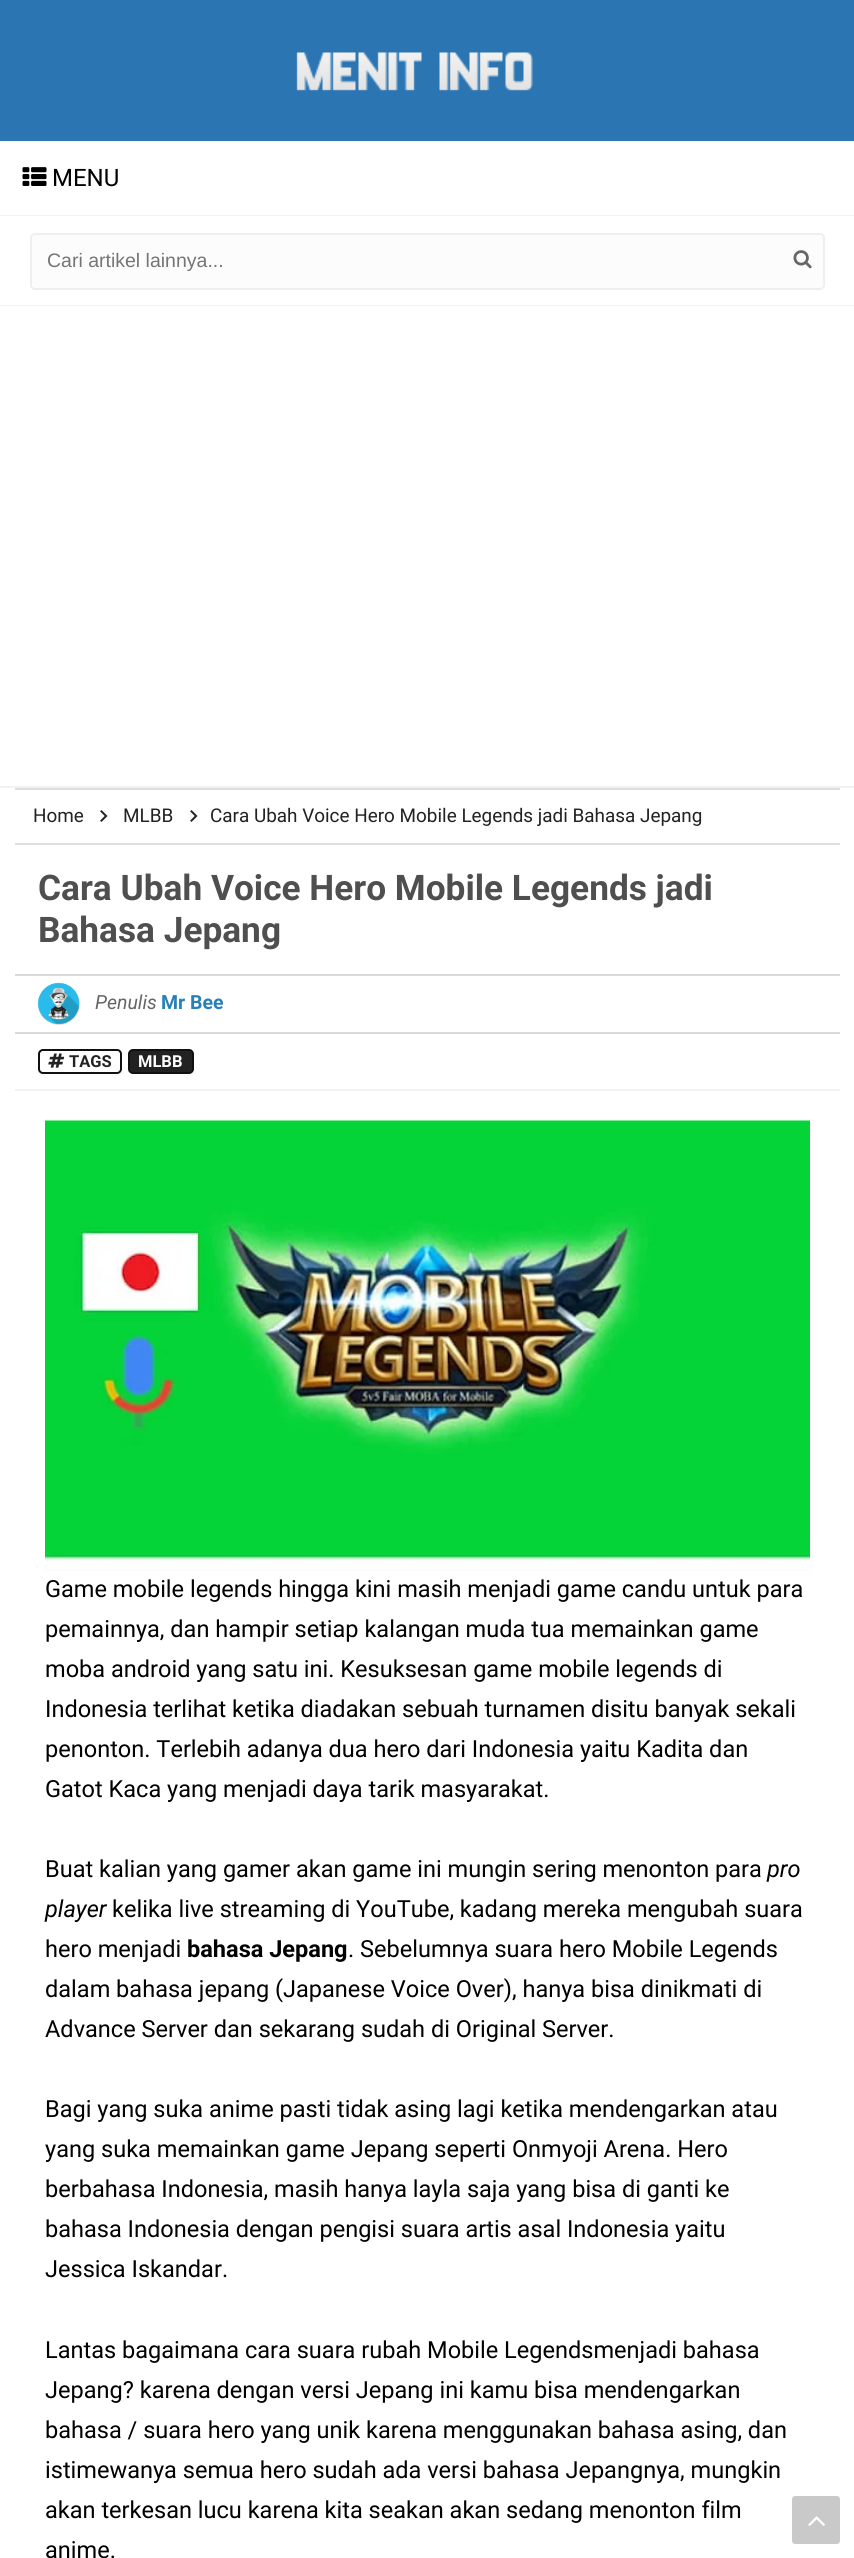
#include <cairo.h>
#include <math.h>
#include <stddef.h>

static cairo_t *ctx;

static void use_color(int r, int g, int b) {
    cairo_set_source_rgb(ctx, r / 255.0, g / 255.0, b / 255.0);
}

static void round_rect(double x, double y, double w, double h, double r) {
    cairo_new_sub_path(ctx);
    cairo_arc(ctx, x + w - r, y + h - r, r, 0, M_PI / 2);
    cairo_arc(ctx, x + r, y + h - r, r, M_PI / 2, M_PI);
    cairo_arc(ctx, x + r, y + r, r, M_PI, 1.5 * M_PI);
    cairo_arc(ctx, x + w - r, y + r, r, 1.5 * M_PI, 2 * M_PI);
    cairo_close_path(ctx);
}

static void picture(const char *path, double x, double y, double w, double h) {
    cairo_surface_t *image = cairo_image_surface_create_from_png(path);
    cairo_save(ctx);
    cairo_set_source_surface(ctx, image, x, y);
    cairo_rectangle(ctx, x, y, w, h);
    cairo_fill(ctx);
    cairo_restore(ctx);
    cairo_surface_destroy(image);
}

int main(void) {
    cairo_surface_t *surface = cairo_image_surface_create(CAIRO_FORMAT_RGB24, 854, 2558);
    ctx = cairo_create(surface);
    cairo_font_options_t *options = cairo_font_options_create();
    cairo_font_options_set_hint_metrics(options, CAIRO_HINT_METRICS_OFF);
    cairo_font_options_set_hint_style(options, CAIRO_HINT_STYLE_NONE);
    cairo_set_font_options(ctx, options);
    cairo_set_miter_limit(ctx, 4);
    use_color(43, 117, 179);
    cairo_paint(ctx);
    picture("img1.png", 296, 52, 237, 39);
    use_color(255, 255, 255);
    cairo_rectangle(ctx, 0, 141, 854, 164);
    cairo_fill(ctx);
    cairo_set_source_rgba(ctx, 0, 0, 0, 0.05);
    cairo_rectangle(ctx, 0, 215, 854, 1);
    cairo_fill(ctx);
    picture("img2.png", 22, 167, 25, 19);
    cairo_select_font_face(ctx, "Roboto", CAIRO_FONT_SLANT_NORMAL, CAIRO_FONT_WEIGHT_NORMAL);
    cairo_set_font_size(ctx, 24);
    use_color(0, 0, 0);
    cairo_move_to(ctx, 52, 186);
    cairo_show_text(ctx, "MENU");
    use_color(242, 242, 242);
    cairo_rectangle(ctx, 0, 305, 854, 1);
    cairo_fill(ctx);
    use_color(252, 252, 252);
    round_rect(31, 234, 793, 55, 4);
    cairo_fill_preserve(ctx);
    use_color(239, 239, 239);
    cairo_stroke(ctx);
    cairo_select_font_face(ctx, "Liberation Sans", CAIRO_FONT_SLANT_NORMAL, CAIRO_FONT_WEIGHT_NORMAL);
    cairo_set_font_size(ctx, 19.5);
    use_color(117, 117, 117);
    cairo_move_to(ctx, 47, 267);
    cairo_show_text(ctx, "Cari artikel lainnya...");
    picture("img3.png", 793, 250, 19, 19);
    use_color(255, 255, 255);
    cairo_rectangle(ctx, 0, 306, 854, 2252);
    cairo_fill(ctx);
    use_color(242, 242, 242);
    cairo_rectangle(ctx, 0, 786, 854, 2);
    cairo_fill(ctx);
    use_color(222, 222, 222);
    cairo_rectangle(ctx, 15, 788, 825, 2);
    cairo_fill(ctx);
    cairo_rectangle(ctx, 15, 843, 825, 2);
    cairo_fill(ctx);
    cairo_select_font_face(ctx, "Roboto", CAIRO_FONT_SLANT_NORMAL, CAIRO_FONT_WEIGHT_NORMAL);
    cairo_set_font_size(ctx, 18.9);
    use_color(34, 34, 34);
    cairo_move_to(ctx, 33, 822);
    cairo_show_text(ctx, "Home");
    picture("img4.png", 100, 810, 8, 12);
    cairo_move_to(ctx, 123, 822);
    cairo_show_text(ctx, "MLBB");
    picture("img4.png", 190, 810, 8, 12);
    cairo_move_to(ctx, 210, 822);
    cairo_show_text(ctx, "Cara Ubah Voice Hero Mobile Legends jadi Bahasa Jepang");
    cairo_select_font_face(ctx, "Roboto", CAIRO_FONT_SLANT_NORMAL, CAIRO_FONT_WEIGHT_BOLD);
    cairo_set_font_size(ctx, 35.25);
    use_color(79, 79, 79);
    cairo_move_to(ctx, 38, 900);
    cairo_show_text(ctx, "Cara Ubah Voice Hero Mobile Legends jadi");
    cairo_move_to(ctx, 38, 942);
    cairo_show_text(ctx, "Bahasa Jepang");
    use_color(217, 217, 217);
    cairo_rectangle(ctx, 15, 974, 825, 2);
    cairo_fill(ctx);
    cairo_rectangle(ctx, 15, 1032, 825, 2);
    cairo_fill(ctx);
    use_color(230, 230, 230);
    cairo_arc(ctx, 59, 1004, 21, 0, 2 * M_PI);
    cairo_fill(ctx);
    picture("img5.png", 37, 982, 43, 43);
    cairo_select_font_face(ctx, "Roboto", CAIRO_FONT_SLANT_ITALIC, CAIRO_FONT_WEIGHT_NORMAL);
    cairo_set_font_size(ctx, 19.5);
    use_color(102, 102, 102);
    cairo_move_to(ctx, 95, 1009);
    cairo_show_text(ctx, "Penulis");
    cairo_select_font_face(ctx, "Roboto", CAIRO_FONT_SLANT_NORMAL, CAIRO_FONT_WEIGHT_BOLD);
    use_color(41, 128, 185);
    cairo_move_to(ctx, 161, 1009);
    cairo_show_text(ctx, "Mr Bee");
    use_color(242, 242, 242);
    cairo_rectangle(ctx, 15, 1089, 825, 2);
    cairo_fill(ctx);
    round_rect(39, 1050, 82, 23, 4);
    use_color(17, 17, 17);
    cairo_stroke(ctx);
    picture("img6.png", 48, 1053, 17, 15);
    cairo_set_font_size(ctx, 16.5);
    use_color(34, 34, 34);
    cairo_move_to(ctx, 69, 1067);
    cairo_show_text(ctx, "TAGS");
    round_rect(129, 1050, 64, 23, 4);
    cairo_fill_preserve(ctx);
    use_color(17, 17, 17);
    cairo_stroke(ctx);
    use_color(255, 255, 255);
    cairo_move_to(ctx, 138, 1067);
    cairo_show_text(ctx, "MLBB");
    picture("img7.png", 45, 1120, 765, 450);
    use_color(250, 250, 250);
    cairo_rectangle(ctx, 45, 1570, 765, 1);
    cairo_fill(ctx);
    cairo_select_font_face(ctx, "Roboto", CAIRO_FONT_SLANT_NORMAL, CAIRO_FONT_WEIGHT_NORMAL);
    cairo_set_font_size(ctx, 23.55);
    use_color(0, 0, 0);
    cairo_move_to(ctx, 45, 1597);
    cairo_show_text(ctx, "Game mobile legends hingga kini masih menjadi game candu untuk para");
    cairo_move_to(ctx, 45, 1637);
    cairo_show_text(ctx, "pemainnya, dan hampir setiap kalangan muda tua memainkan game");
    cairo_move_to(ctx, 45, 1677);
    cairo_show_text(ctx, "moba android yang satu ini. Kesuksesan game mobile legends di");
    cairo_move_to(ctx, 45, 1717);
    cairo_show_text(ctx, "Indonesia terlihat ketika diadakan sebuah turnamen disitu banyak sekali");
    cairo_move_to(ctx, 45, 1757);
    cairo_show_text(ctx, "penonton. Terlebih adanya dua hero dari Indonesia yaitu Kadita dan");
    cairo_move_to(ctx, 45, 1797);
    cairo_show_text(ctx, "Gatot Kaca yang menjadi daya tarik masyarakat.");
    cairo_move_to(ctx, 45, 1877);
    cairo_show_text(ctx, "Buat kalian yang gamer akan game ini mungin sering menonton para");
    cairo_select_font_face(ctx, "Roboto", CAIRO_FONT_SLANT_ITALIC, CAIRO_FONT_WEIGHT_NORMAL);
    cairo_move_to(ctx, 767, 1877);
    cairo_show_text(ctx, "pro");
    cairo_move_to(ctx, 45, 1917);
    cairo_show_text(ctx, "player");
    cairo_select_font_face(ctx, "Roboto", CAIRO_FONT_SLANT_NORMAL, CAIRO_FONT_WEIGHT_NORMAL);
    cairo_move_to(ctx, 112, 1917);
    cairo_show_text(ctx, "kelika live streaming di YouTube, kadang mereka mengubah suara");
    cairo_move_to(ctx, 45, 1957);
    cairo_show_text(ctx, "hero menjadi");
    cairo_select_font_face(ctx, "Roboto", CAIRO_FONT_SLANT_NORMAL, CAIRO_FONT_WEIGHT_BOLD);
    cairo_move_to(ctx, 187, 1957);
    cairo_show_text(ctx, "bahasa Jepang");
    cairo_select_font_face(ctx, "Roboto", CAIRO_FONT_SLANT_NORMAL, CAIRO_FONT_WEIGHT_NORMAL);
    cairo_move_to(ctx, 348, 1957);
    cairo_show_text(ctx, ". Sebelumnya suara hero Mobile Legends");
    cairo_move_to(ctx, 45, 1997);
    cairo_show_text(ctx, "dalam bahasa jepang (Japanese Voice Over), hanya bisa dinikmati di");
    cairo_move_to(ctx, 45, 2037);
    cairo_show_text(ctx, "Advance Server dan sekarang sudah di Original Server.");
    cairo_move_to(ctx, 45, 2117);
    cairo_show_text(ctx, "Bagi yang suka anime pasti tidak asing lagi ketika mendengarkan atau");
    cairo_move_to(ctx, 45, 2157);
    cairo_show_text(ctx, "yang suka memainkan game Jepang seperti Onmyoji Arena. Hero");
    cairo_move_to(ctx, 45, 2197);
    cairo_show_text(ctx, "berbahasa Indonesia, masih hanya layla saja yang bisa di ganti ke");
    cairo_move_to(ctx, 45, 2237);
    cairo_show_text(ctx, "bahasa Indonesia dengan pengisi suara artis asal Indonesia yaitu");
    cairo_move_to(ctx, 45, 2277);
    cairo_show_text(ctx, "Jessica Iskandar.");
    cairo_move_to(ctx, 45, 2358);
    cairo_show_text(ctx, "Lantas bagaimana cara suara rubah Mobile Legendsmenjadi bahasa");
    cairo_move_to(ctx, 45, 2398);
    cairo_show_text(ctx, "Jepang? karena dengan versi Jepang ini kamu bisa mendengarkan");
    cairo_move_to(ctx, 45, 2438);
    cairo_show_text(ctx, "bahasa / suara hero yang unik karena menggunakan bahasa asing, dan");
    cairo_move_to(ctx, 45, 2478);
    cairo_show_text(ctx, "istimewanya semua hero sudah ada versi bahasa Jepangnya, mungkin");
    cairo_move_to(ctx, 45, 2518);
    cairo_show_text(ctx, "akan terkesan lucu karena kita seakan akan sedang menonton film");
    cairo_move_to(ctx, 45, 2558);
    cairo_show_text(ctx, "anime.");
    use_color(201, 201, 201);
    round_rect(792, 2496, 48, 48, 3);
    cairo_fill(ctx);
    picture("img8.png", 808, 2516, 17, 10);
    cairo_surface_write_to_png(surface, "result.png");
    cairo_font_options_destroy(options);
    cairo_destroy(ctx);
    cairo_surface_destroy(surface);
    return 0;
}
